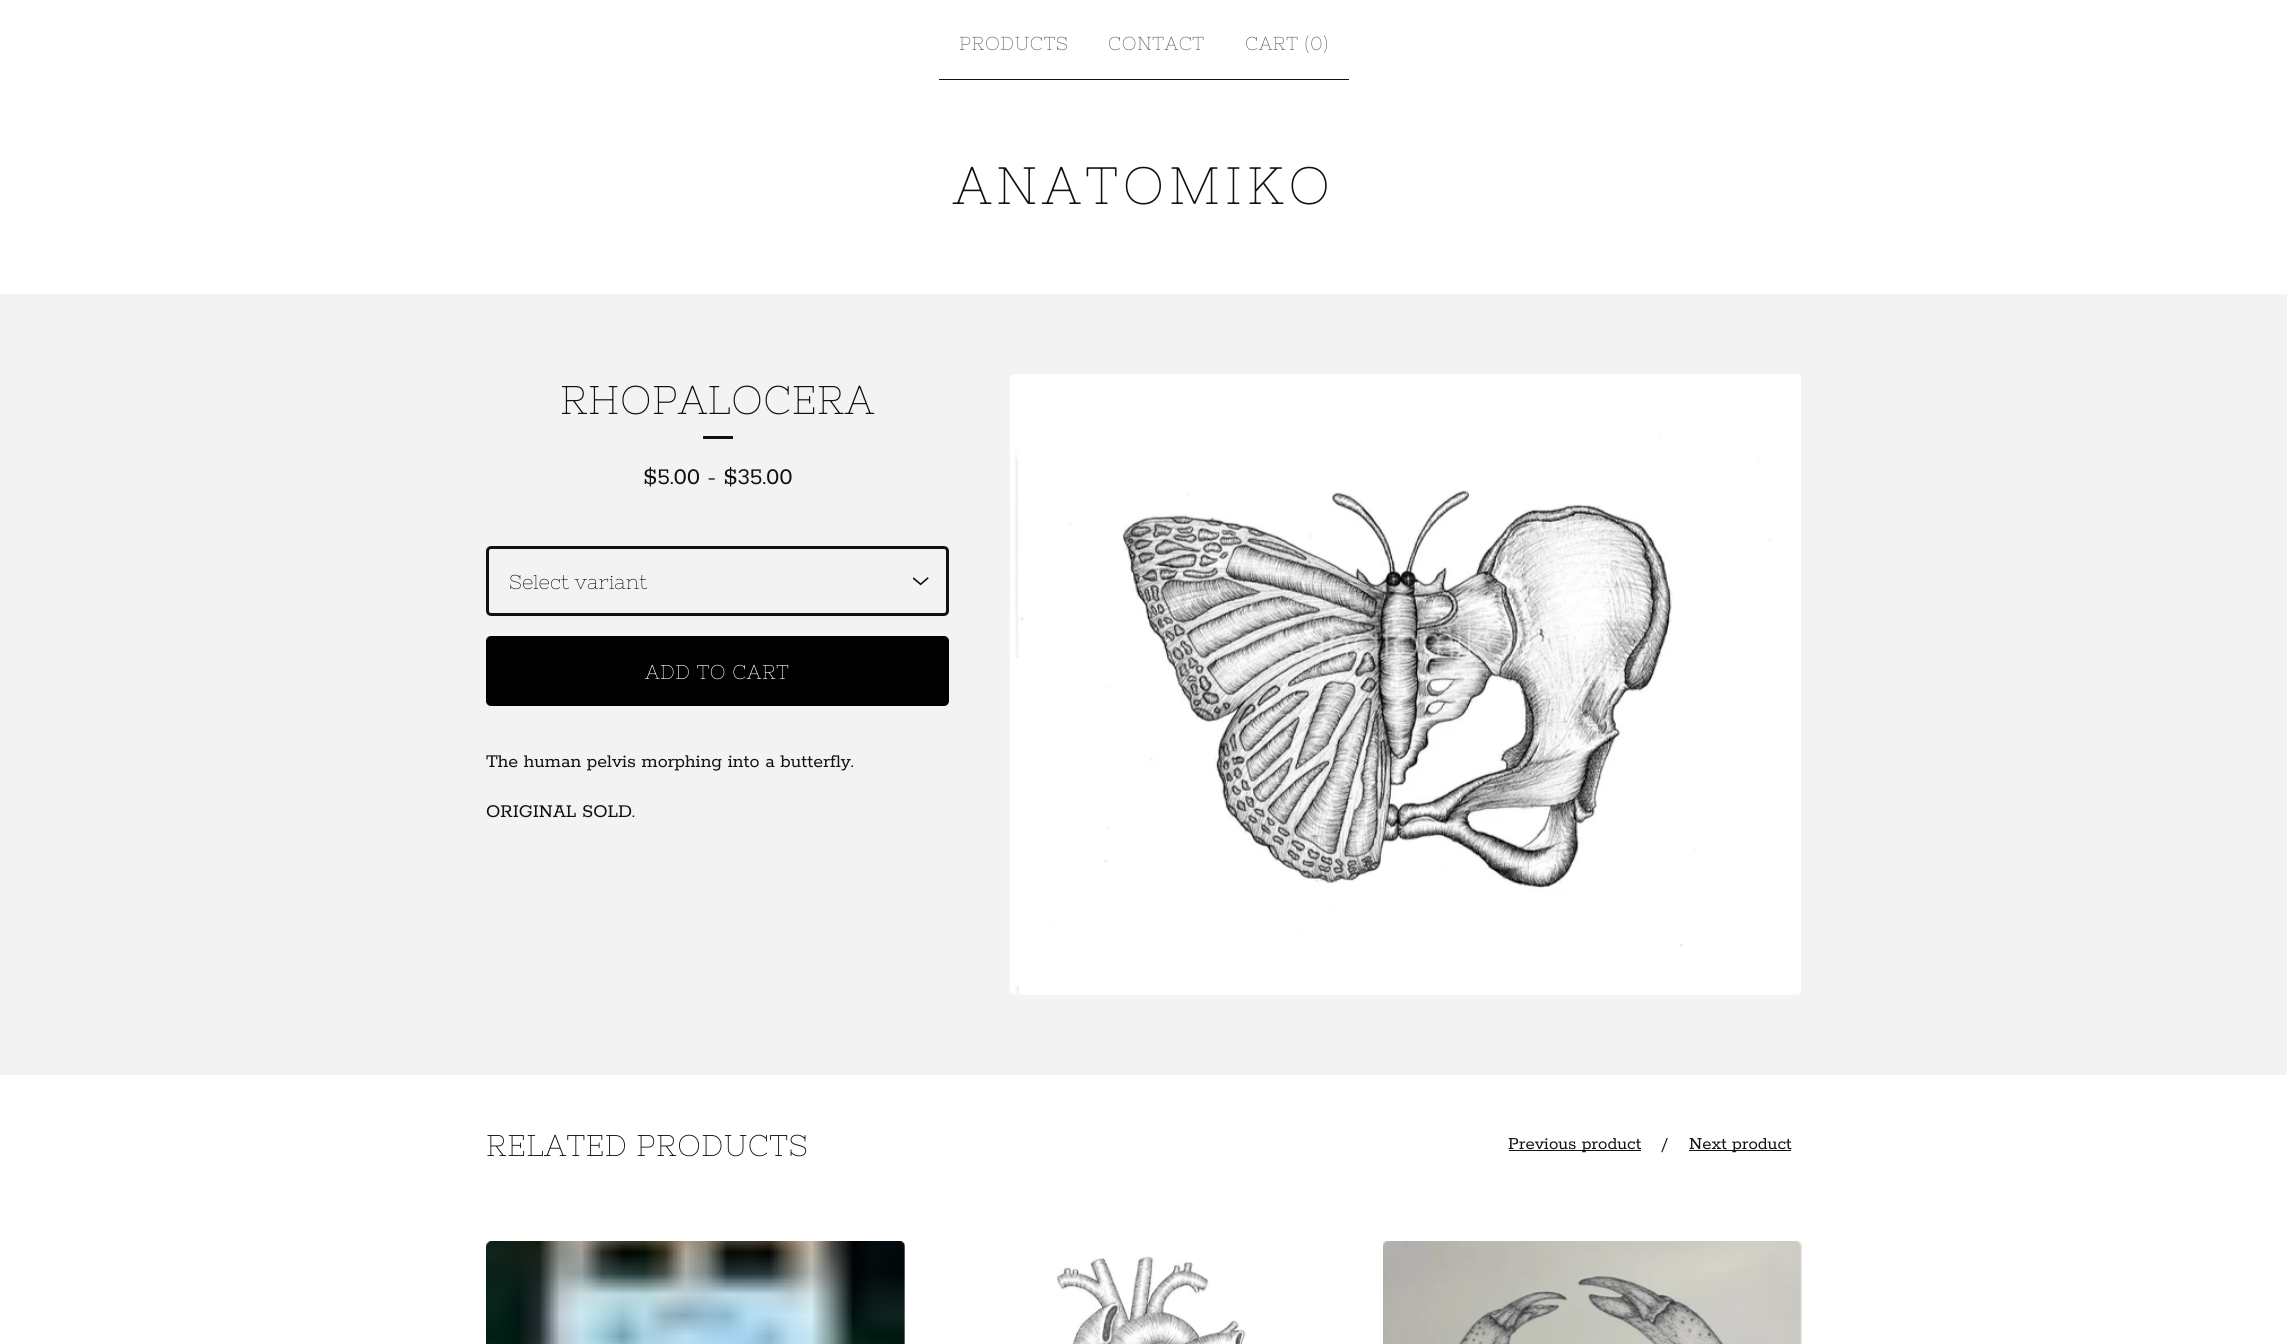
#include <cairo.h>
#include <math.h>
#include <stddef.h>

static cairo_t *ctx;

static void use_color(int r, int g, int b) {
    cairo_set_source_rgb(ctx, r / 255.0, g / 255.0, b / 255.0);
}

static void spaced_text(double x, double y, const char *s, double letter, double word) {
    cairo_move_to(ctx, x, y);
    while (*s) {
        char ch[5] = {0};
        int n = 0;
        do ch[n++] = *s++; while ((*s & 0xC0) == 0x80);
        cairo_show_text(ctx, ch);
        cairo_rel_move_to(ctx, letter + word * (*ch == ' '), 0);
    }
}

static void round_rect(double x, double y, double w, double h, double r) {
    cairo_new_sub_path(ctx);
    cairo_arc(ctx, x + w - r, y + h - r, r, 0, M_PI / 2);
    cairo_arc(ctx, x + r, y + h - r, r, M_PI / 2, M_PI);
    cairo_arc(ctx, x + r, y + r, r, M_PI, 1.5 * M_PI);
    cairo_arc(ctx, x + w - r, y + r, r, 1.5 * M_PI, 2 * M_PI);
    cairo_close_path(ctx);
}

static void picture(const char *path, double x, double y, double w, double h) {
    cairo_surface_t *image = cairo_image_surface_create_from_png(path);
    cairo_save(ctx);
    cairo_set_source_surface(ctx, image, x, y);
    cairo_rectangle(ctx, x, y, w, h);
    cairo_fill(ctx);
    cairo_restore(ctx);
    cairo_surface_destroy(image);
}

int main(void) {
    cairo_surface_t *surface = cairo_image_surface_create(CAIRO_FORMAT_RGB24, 2287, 1344);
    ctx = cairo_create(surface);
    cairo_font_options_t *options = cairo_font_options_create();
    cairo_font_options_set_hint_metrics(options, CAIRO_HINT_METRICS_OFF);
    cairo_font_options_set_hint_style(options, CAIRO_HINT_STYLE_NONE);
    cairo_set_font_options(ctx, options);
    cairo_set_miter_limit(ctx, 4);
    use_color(255, 255, 255);
    cairo_paint(ctx);
    use_color(17, 17, 17);
    cairo_rectangle(ctx, 939, 79, 410, 1);
    cairo_fill(ctx);
    cairo_select_font_face(ctx, "Nixie One", CAIRO_FONT_SLANT_NORMAL, CAIRO_FONT_WEIGHT_NORMAL);
    cairo_set_font_size(ctx, 18.75);
    use_color(85, 85, 85);
    spaced_text(959, 50, "PRODUCTS", 0.6, 0);
    spaced_text(1108, 50, "CONTACT", 0.6, 0);
    spaced_text(1245, 50, "CART (0)", 0.6, 0);
    cairo_set_font_size(ctx, 52.5);
    use_color(17, 17, 17);
    spaced_text(953, 204, "ANATOMIKO", 5, 0);
    use_color(243, 243, 243);
    cairo_rectangle(ctx, 0, 294, 2287, 781);
    cairo_fill(ctx);
    cairo_set_font_size(ctx, 40);
    use_color(17, 17, 17);
    spaced_text(560, 414, "RHOPALOCERA", 0.6, 0);
    cairo_rectangle(ctx, 703, 436, 30, 3);
    cairo_fill(ctx);
    cairo_select_font_face(ctx, "Rokkitt", CAIRO_FONT_SLANT_NORMAL, CAIRO_FONT_WEIGHT_NORMAL);
    cairo_set_font_size(ctx, 25);
    cairo_move_to(ctx, 643, 484);
    cairo_show_text(ctx, "$5.00 - $35.00");
    picture("img1.png", 1010, 374, 791, 621);
    picture("img2.png", 913, 577, 16, 9);
    round_rect(487.5, 547.5, 460, 67, 3.5);
    cairo_set_line_width(ctx, 3);
    cairo_stroke(ctx);
    cairo_select_font_face(ctx, "Nixie One", CAIRO_FONT_SLANT_NORMAL, CAIRO_FONT_WEIGHT_NORMAL);
    cairo_set_font_size(ctx, 20);
    cairo_move_to(ctx, 509, 589);
    cairo_show_text(ctx, "Select variant");
    use_color(0, 0, 0);
    round_rect(486, 636, 463, 70, 5);
    cairo_fill(ctx);
    use_color(255, 255, 255);
    spaced_text(645, 679, "ADD TO CART", 0.6, 0);
    cairo_select_font_face(ctx, "Rokkitt", CAIRO_FONT_SLANT_NORMAL, CAIRO_FONT_WEIGHT_NORMAL);
    use_color(17, 17, 17);
    cairo_move_to(ctx, 486, 767);
    cairo_show_text(ctx, "The human pelvis morphing into a butterfly.");
    cairo_move_to(ctx, 486, 817);
    cairo_show_text(ctx, "ORIGINAL SOLD.");
    cairo_select_font_face(ctx, "Nixie One", CAIRO_FONT_SLANT_NORMAL, CAIRO_FONT_WEIGHT_NORMAL);
    cairo_set_font_size(ctx, 30);
    spaced_text(486, 1156, "RELATED PRODUCTS", 0.6, 0);
    cairo_rectangle(ctx, 1509, 1150, 132, 1);
    cairo_fill(ctx);
    cairo_select_font_face(ctx, "Rokkitt", CAIRO_FONT_SLANT_NORMAL, CAIRO_FONT_WEIGHT_NORMAL);
    cairo_set_font_size(ctx, 18.75);
    cairo_move_to(ctx, 1508, 1149);
    cairo_show_text(ctx, "Previous product");
    cairo_move_to(ctx, 1661, 1149);
    cairo_show_text(ctx, "/");
    cairo_rectangle(ctx, 1689, 1150, 102, 1);
    cairo_fill(ctx);
    cairo_move_to(ctx, 1689, 1149);
    cairo_show_text(ctx, "Next product");
    picture("img3.png", 486, 1241, 419, 103);
    picture("img4.png", 1056, 1256, 191, 88);
    picture("img5.png", 1383, 1241, 419, 103);
    cairo_surface_write_to_png(surface, "result.png");
    cairo_font_options_destroy(options);
    cairo_destroy(ctx);
    cairo_surface_destroy(surface);
    return 0;
}
